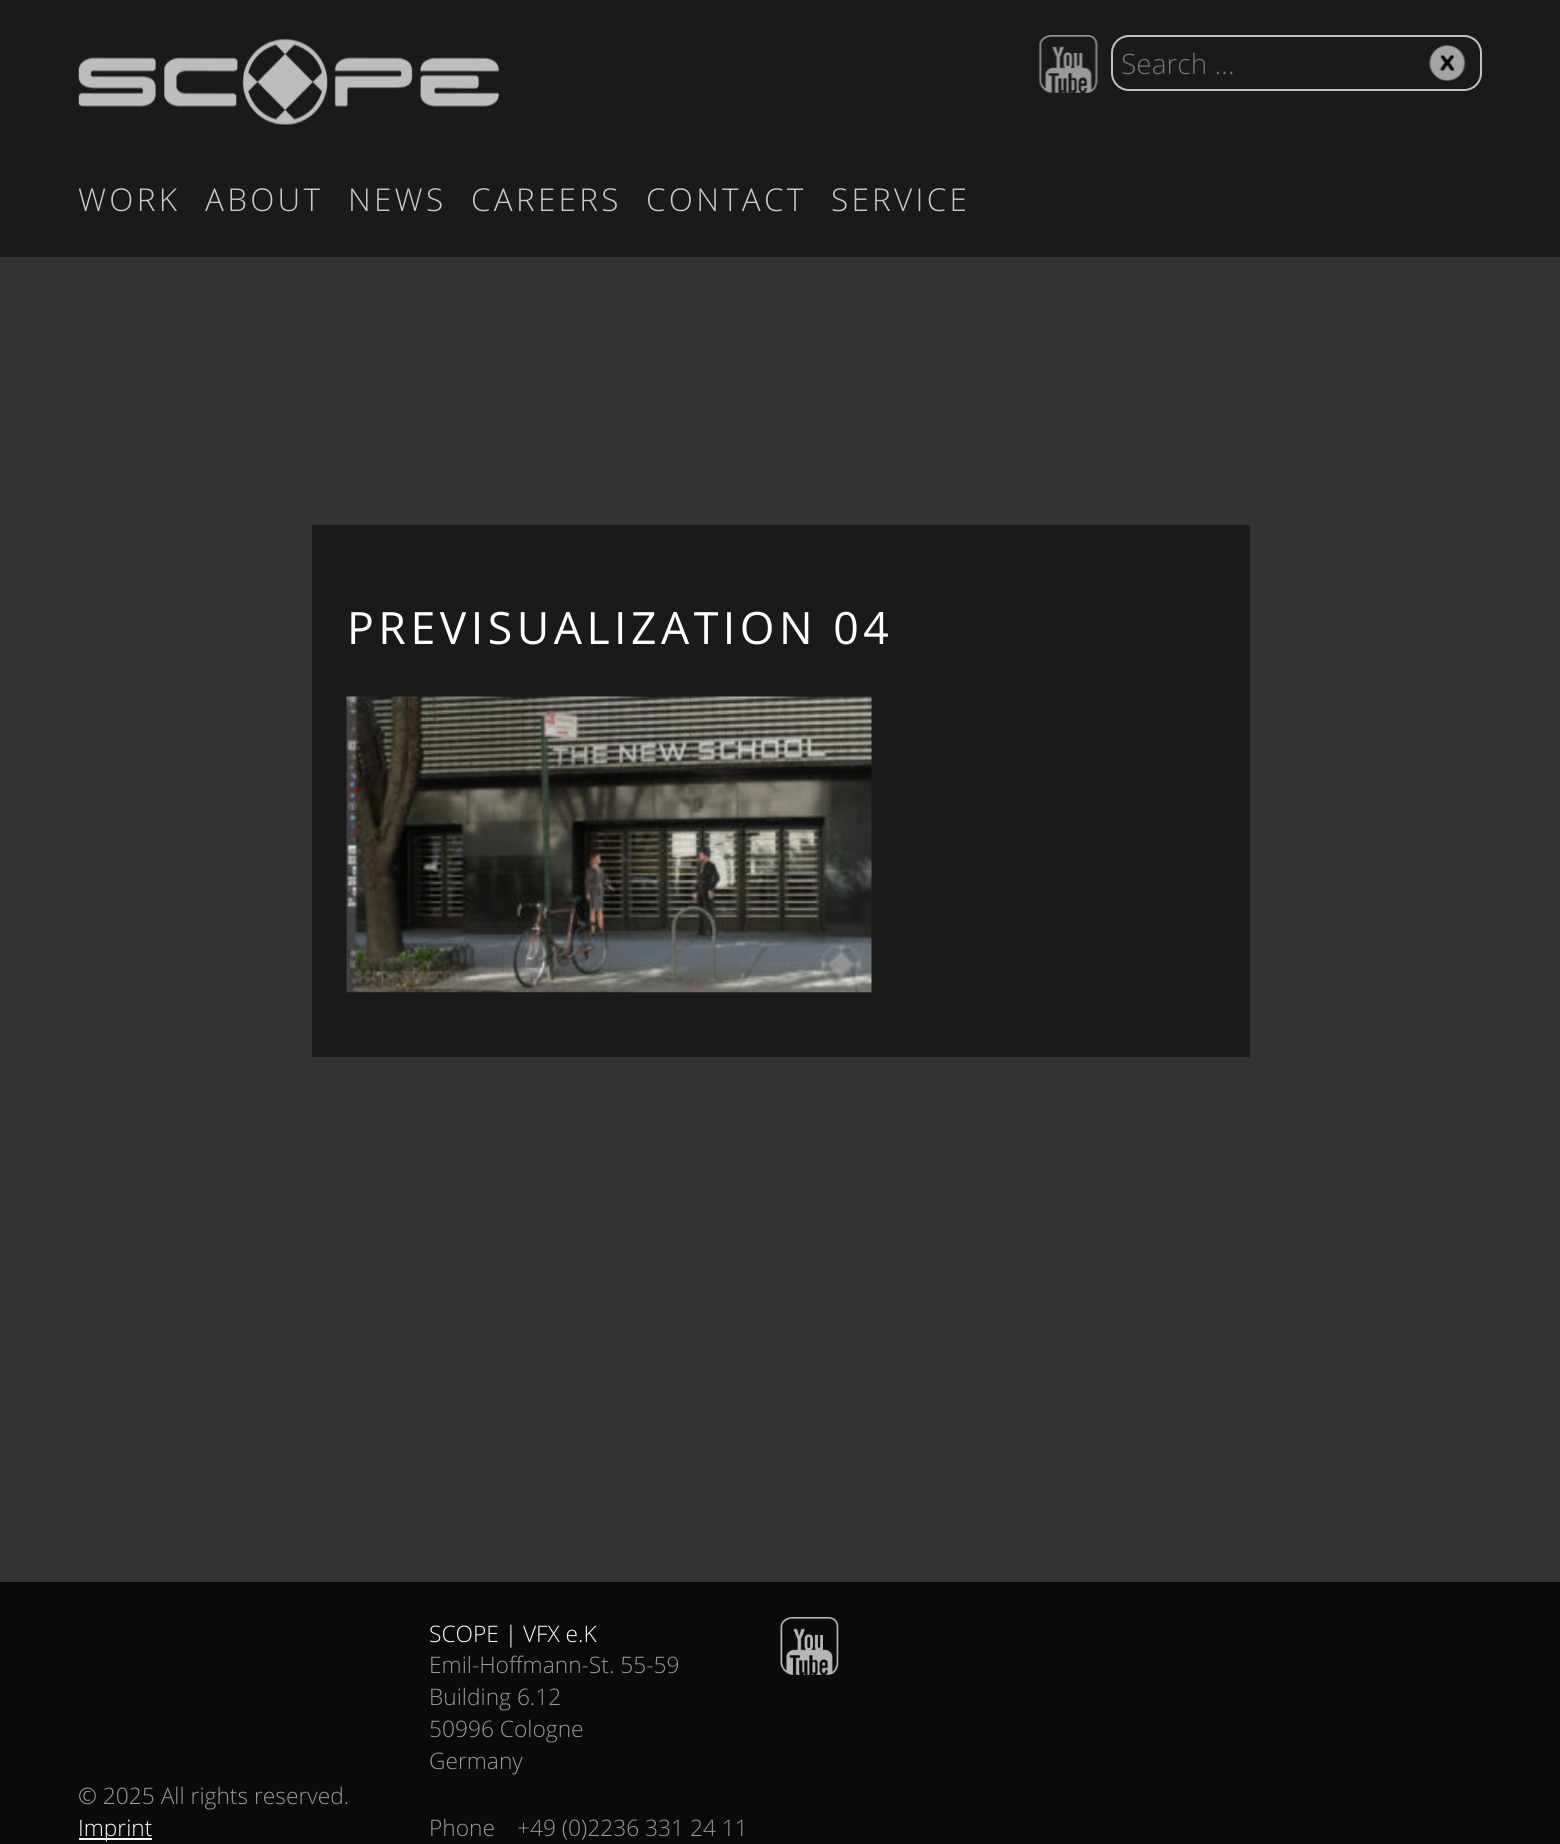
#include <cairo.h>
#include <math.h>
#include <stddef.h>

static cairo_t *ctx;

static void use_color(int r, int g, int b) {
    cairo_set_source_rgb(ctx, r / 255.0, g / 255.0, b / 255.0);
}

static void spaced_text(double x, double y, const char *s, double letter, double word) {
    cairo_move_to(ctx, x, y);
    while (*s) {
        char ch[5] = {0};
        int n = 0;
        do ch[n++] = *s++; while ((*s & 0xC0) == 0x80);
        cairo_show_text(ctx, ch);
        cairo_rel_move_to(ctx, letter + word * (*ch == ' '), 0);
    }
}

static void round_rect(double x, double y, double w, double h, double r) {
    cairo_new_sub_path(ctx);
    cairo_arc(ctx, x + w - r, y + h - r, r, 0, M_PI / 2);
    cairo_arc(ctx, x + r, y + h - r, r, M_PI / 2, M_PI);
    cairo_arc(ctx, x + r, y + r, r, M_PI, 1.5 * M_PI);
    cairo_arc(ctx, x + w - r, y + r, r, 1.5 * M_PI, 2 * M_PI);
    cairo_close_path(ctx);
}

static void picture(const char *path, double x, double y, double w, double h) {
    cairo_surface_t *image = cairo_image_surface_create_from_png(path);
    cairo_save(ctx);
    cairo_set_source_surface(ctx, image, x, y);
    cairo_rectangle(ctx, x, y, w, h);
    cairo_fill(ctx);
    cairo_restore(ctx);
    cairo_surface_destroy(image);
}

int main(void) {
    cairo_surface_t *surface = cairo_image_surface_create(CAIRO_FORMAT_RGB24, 1560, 1844);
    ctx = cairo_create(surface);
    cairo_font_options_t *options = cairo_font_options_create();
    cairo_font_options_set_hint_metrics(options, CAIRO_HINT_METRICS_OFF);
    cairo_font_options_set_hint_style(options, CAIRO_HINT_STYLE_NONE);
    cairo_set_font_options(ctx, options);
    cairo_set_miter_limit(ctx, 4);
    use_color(51, 51, 51);
    cairo_paint(ctx);
    use_color(26, 26, 26);
    cairo_rectangle(ctx, 0, 0, 1560, 257);
    cairo_fill(ctx);
    picture("img1.png", 78, 38, 421, 87);
    picture("img2.png", 1039, 35, 59, 58);
    round_rect(1112, 36, 369, 54, 17);
    use_color(192, 192, 192);
    cairo_stroke(ctx);
    cairo_select_font_face(ctx, "Open Sans Light", CAIRO_FONT_SLANT_NORMAL, CAIRO_FONT_WEIGHT_NORMAL);
    cairo_set_font_size(ctx, 28);
    use_color(117, 117, 117);
    cairo_move_to(ctx, 1121, 74);
    cairo_show_text(ctx, "Search …");
    picture("img3.png", 1429, 45, 37, 36);
    cairo_set_font_size(ctx, 31.5);
    use_color(201, 201, 201);
    spaced_text(78, 211, "WORK", 3.25, 0);
    spaced_text(205, 211, "ABOUT", 3.25, 0);
    spaced_text(348, 211, "NEWS", 3.25, 0);
    spaced_text(471, 211, "CAREERS", 3.25, 0);
    spaced_text(646, 211, "CONTACT", 3.25, 0);
    spaced_text(831, 211, "SERVICE", 3.25, 0);
    use_color(26, 26, 26);
    cairo_rectangle(ctx, 312, 525, 938, 532);
    cairo_fill(ctx);
    cairo_select_font_face(ctx, "Open Sans", CAIRO_FONT_SLANT_NORMAL, CAIRO_FONT_WEIGHT_NORMAL);
    cairo_set_font_size(ctx, 44.6);
    use_color(255, 255, 255);
    spaced_text(347, 644, "PREVISUALIZATION 04", 4.5, 0);
    picture("img4.png", 346, 696, 526, 297);
    use_color(10, 10, 10);
    cairo_rectangle(ctx, 0, 1582, 1560, 262);
    cairo_fill(ctx);
    cairo_select_font_face(ctx, "Open Sans Light", CAIRO_FONT_SLANT_NORMAL, CAIRO_FONT_WEIGHT_NORMAL);
    cairo_set_font_size(ctx, 22.75);
    use_color(153, 153, 153);
    cairo_move_to(ctx, 78, 1804);
    cairo_show_text(ctx, "© 2025 All rights reserved.");
    use_color(255, 255, 255);
    cairo_rectangle(ctx, 79, 1838, 73, 2);
    cairo_fill(ctx);
    cairo_move_to(ctx, 78, 1836);
    cairo_show_text(ctx, "Imprint");
    cairo_move_to(ctx, 429, 1642);
    cairo_show_text(ctx, "SCOPE | VFX e.K");
    use_color(153, 153, 153);
    cairo_move_to(ctx, 429, 1673);
    cairo_show_text(ctx, "Emil-Hoffmann-St. 55-59");
    cairo_move_to(ctx, 429, 1705);
    cairo_show_text(ctx, "Building 6.12");
    cairo_move_to(ctx, 429, 1737);
    cairo_show_text(ctx, "50996 Cologne");
    cairo_move_to(ctx, 429, 1769);
    cairo_show_text(ctx, "Germany");
    cairo_move_to(ctx, 429, 1836);
    cairo_show_text(ctx, "Phone");
    cairo_move_to(ctx, 517, 1836);
    cairo_show_text(ctx, "+49 (0)2236 331 24 11");
    picture("img5.png", 780, 1617, 59, 58);
    cairo_surface_write_to_png(surface, "result.png");
    cairo_font_options_destroy(options);
    cairo_destroy(ctx);
    cairo_surface_destroy(surface);
    return 0;
}
